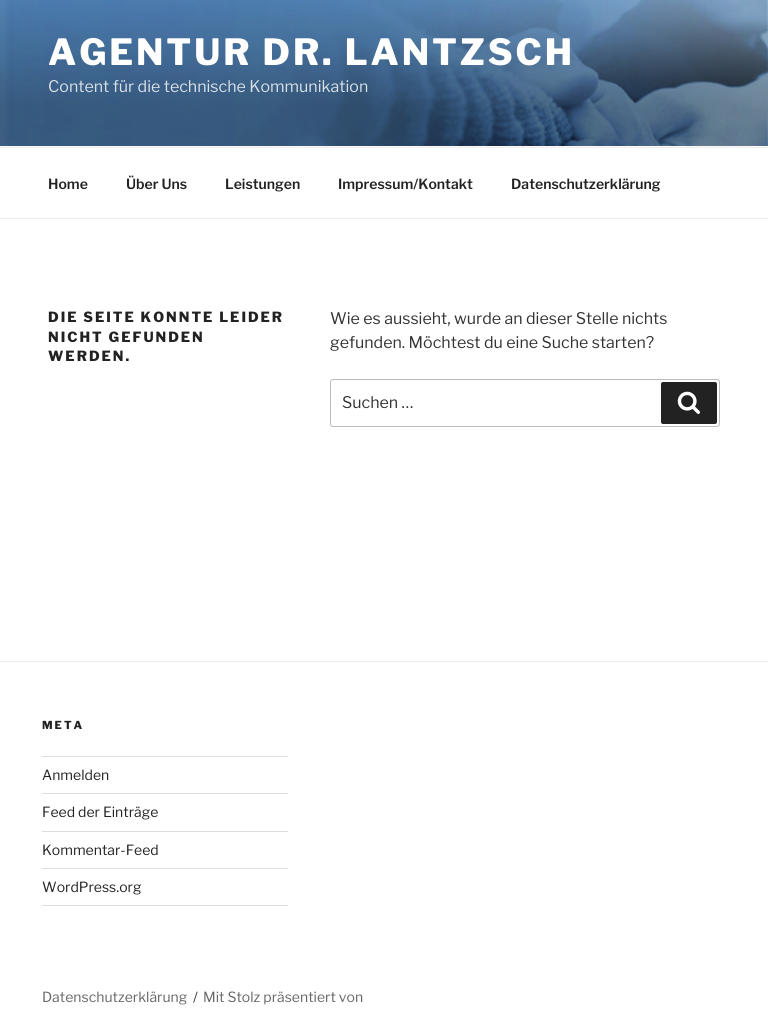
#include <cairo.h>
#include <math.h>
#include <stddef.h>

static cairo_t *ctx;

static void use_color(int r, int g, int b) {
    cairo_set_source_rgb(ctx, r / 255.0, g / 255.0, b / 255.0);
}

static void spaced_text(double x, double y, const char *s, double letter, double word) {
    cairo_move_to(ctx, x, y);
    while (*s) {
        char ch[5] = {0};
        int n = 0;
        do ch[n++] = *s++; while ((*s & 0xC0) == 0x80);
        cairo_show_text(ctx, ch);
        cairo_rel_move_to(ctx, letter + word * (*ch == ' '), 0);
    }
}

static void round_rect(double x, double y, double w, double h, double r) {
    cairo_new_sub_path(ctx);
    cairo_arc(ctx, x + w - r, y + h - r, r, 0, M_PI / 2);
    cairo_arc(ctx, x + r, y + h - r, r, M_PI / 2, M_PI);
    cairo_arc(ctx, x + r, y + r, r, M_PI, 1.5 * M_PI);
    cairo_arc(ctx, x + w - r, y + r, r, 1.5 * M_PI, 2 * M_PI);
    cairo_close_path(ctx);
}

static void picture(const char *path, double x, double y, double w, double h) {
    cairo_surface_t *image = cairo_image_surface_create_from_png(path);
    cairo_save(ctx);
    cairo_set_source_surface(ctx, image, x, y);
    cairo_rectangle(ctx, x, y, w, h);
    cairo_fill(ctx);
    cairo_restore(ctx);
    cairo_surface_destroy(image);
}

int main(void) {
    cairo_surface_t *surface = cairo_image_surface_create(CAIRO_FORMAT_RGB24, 768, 1018);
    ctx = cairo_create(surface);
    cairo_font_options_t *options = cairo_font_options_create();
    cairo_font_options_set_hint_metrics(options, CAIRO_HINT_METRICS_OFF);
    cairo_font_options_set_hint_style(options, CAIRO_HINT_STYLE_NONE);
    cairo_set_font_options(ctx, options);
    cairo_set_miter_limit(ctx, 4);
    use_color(255, 255, 255);
    cairo_paint(ctx);
    use_color(250, 250, 250);
    cairo_rectangle(ctx, 0, 146, 768, 1);
    cairo_fill(ctx);
    picture("img1.png", 0, 0, 768, 146);
    cairo_select_font_face(ctx, "Libre Franklin Thin", CAIRO_FONT_SLANT_NORMAL, CAIRO_FONT_WEIGHT_NORMAL);
    cairo_set_font_size(ctx, 36);
    use_color(255, 255, 255);
    spaced_text(48, 65, "AGENTUR DR. LANTZSCH", 2.9, 0);
    cairo_select_font_face(ctx, "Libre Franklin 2 Thin", CAIRO_FONT_SLANT_NORMAL, CAIRO_FONT_WEIGHT_NORMAL);
    cairo_set_font_size(ctx, 16);
    use_color(216, 223, 231);
    cairo_move_to(ctx, 48, 92);
    cairo_show_text(ctx, "Content für die technische Kommunikation");
    use_color(238, 238, 238);
    cairo_rectangle(ctx, 0, 147, 768, 1);
    cairo_fill(ctx);
    cairo_rectangle(ctx, 0, 218, 768, 1);
    cairo_fill(ctx);
    cairo_select_font_face(ctx, "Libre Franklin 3 Thin", CAIRO_FONT_SLANT_NORMAL, CAIRO_FONT_WEIGHT_NORMAL);
    cairo_set_font_size(ctx, 14);
    use_color(34, 34, 34);
    cairo_move_to(ctx, 48, 189);
    cairo_show_text(ctx, "Home");
    cairo_move_to(ctx, 126, 189);
    cairo_show_text(ctx, "Über Uns");
    cairo_move_to(ctx, 225, 189);
    cairo_show_text(ctx, "Leistungen");
    cairo_move_to(ctx, 338, 189);
    cairo_show_text(ctx, "Impressum/Kontakt");
    cairo_move_to(ctx, 511, 189);
    cairo_show_text(ctx, "Datenschutzerklärung");
    cairo_select_font_face(ctx, "Libre Franklin Thin", CAIRO_FONT_SLANT_NORMAL, CAIRO_FONT_WEIGHT_NORMAL);
    spaced_text(48, 322, "DIE SEITE KONNTE LEIDER", 2, 0);
    spaced_text(48, 342, "NICHT GEFUNDEN", 2, 0);
    spaced_text(48, 361, "WERDEN.", 2, 0);
    cairo_select_font_face(ctx, "Libre Franklin 2 Thin", CAIRO_FONT_SLANT_NORMAL, CAIRO_FONT_WEIGHT_NORMAL);
    cairo_set_font_size(ctx, 16);
    use_color(51, 51, 51);
    cairo_move_to(ctx, 330, 324);
    cairo_show_text(ctx, "Wie es aussieht, wurde an dieser Stelle nichts");
    cairo_move_to(ctx, 330, 348);
    cairo_show_text(ctx, "gefunden. Möchtest du eine Suche starten?");
    round_rect(330.5, 379.5, 389, 47, 2.5);
    use_color(187, 187, 187);
    cairo_set_line_width(ctx, 1);
    cairo_stroke(ctx);
    use_color(51, 51, 51);
    cairo_move_to(ctx, 342, 408);
    cairo_show_text(ctx, "Suchen …");
    use_color(34, 34, 34);
    round_rect(661, 382, 56, 42, 2);
    cairo_fill(ctx);
    picture("img2.png", 677, 391, 23, 23);
    use_color(238, 238, 238);
    cairo_rectangle(ctx, 0, 661, 768, 1);
    cairo_fill(ctx);
    cairo_select_font_face(ctx, "Libre Franklin Thin", CAIRO_FONT_SLANT_NORMAL, CAIRO_FONT_WEIGHT_NORMAL);
    cairo_set_font_size(ctx, 11);
    use_color(34, 34, 34);
    spaced_text(42, 729, "META", 2, 0);
    use_color(221, 221, 221);
    cairo_rectangle(ctx, 42, 756, 246, 1);
    cairo_fill(ctx);
    cairo_rectangle(ctx, 42, 793, 246, 1);
    cairo_fill(ctx);
    cairo_select_font_face(ctx, "Libre Franklin 2 Thin", CAIRO_FONT_SLANT_NORMAL, CAIRO_FONT_WEIGHT_NORMAL);
    cairo_set_font_size(ctx, 14);
    use_color(34, 34, 34);
    cairo_move_to(ctx, 42, 780);
    cairo_show_text(ctx, "Anmelden");
    use_color(221, 221, 221);
    cairo_rectangle(ctx, 42, 831, 246, 1);
    cairo_fill(ctx);
    use_color(34, 34, 34);
    cairo_move_to(ctx, 42, 817);
    cairo_show_text(ctx, "Feed der Einträge");
    use_color(221, 221, 221);
    cairo_rectangle(ctx, 42, 868, 246, 1);
    cairo_fill(ctx);
    use_color(34, 34, 34);
    cairo_move_to(ctx, 42, 855);
    cairo_show_text(ctx, "Kommentar-Feed");
    use_color(221, 221, 221);
    cairo_rectangle(ctx, 42, 905, 246, 1);
    cairo_fill(ctx);
    use_color(34, 34, 34);
    cairo_move_to(ctx, 42, 892);
    cairo_show_text(ctx, "WordPress.org");
    use_color(102, 102, 102);
    cairo_move_to(ctx, 42, 1002);
    cairo_show_text(ctx, "Datenschutzerklärung");
    use_color(51, 51, 51);
    cairo_move_to(ctx, 193, 1002);
    cairo_show_text(ctx, "/");
    use_color(102, 102, 102);
    cairo_move_to(ctx, 203, 1002);
    cairo_show_text(ctx, "Mit Stolz präsentiert von");
    cairo_surface_write_to_png(surface, "result.png");
    cairo_font_options_destroy(options);
    cairo_destroy(ctx);
    cairo_surface_destroy(surface);
    return 0;
}
